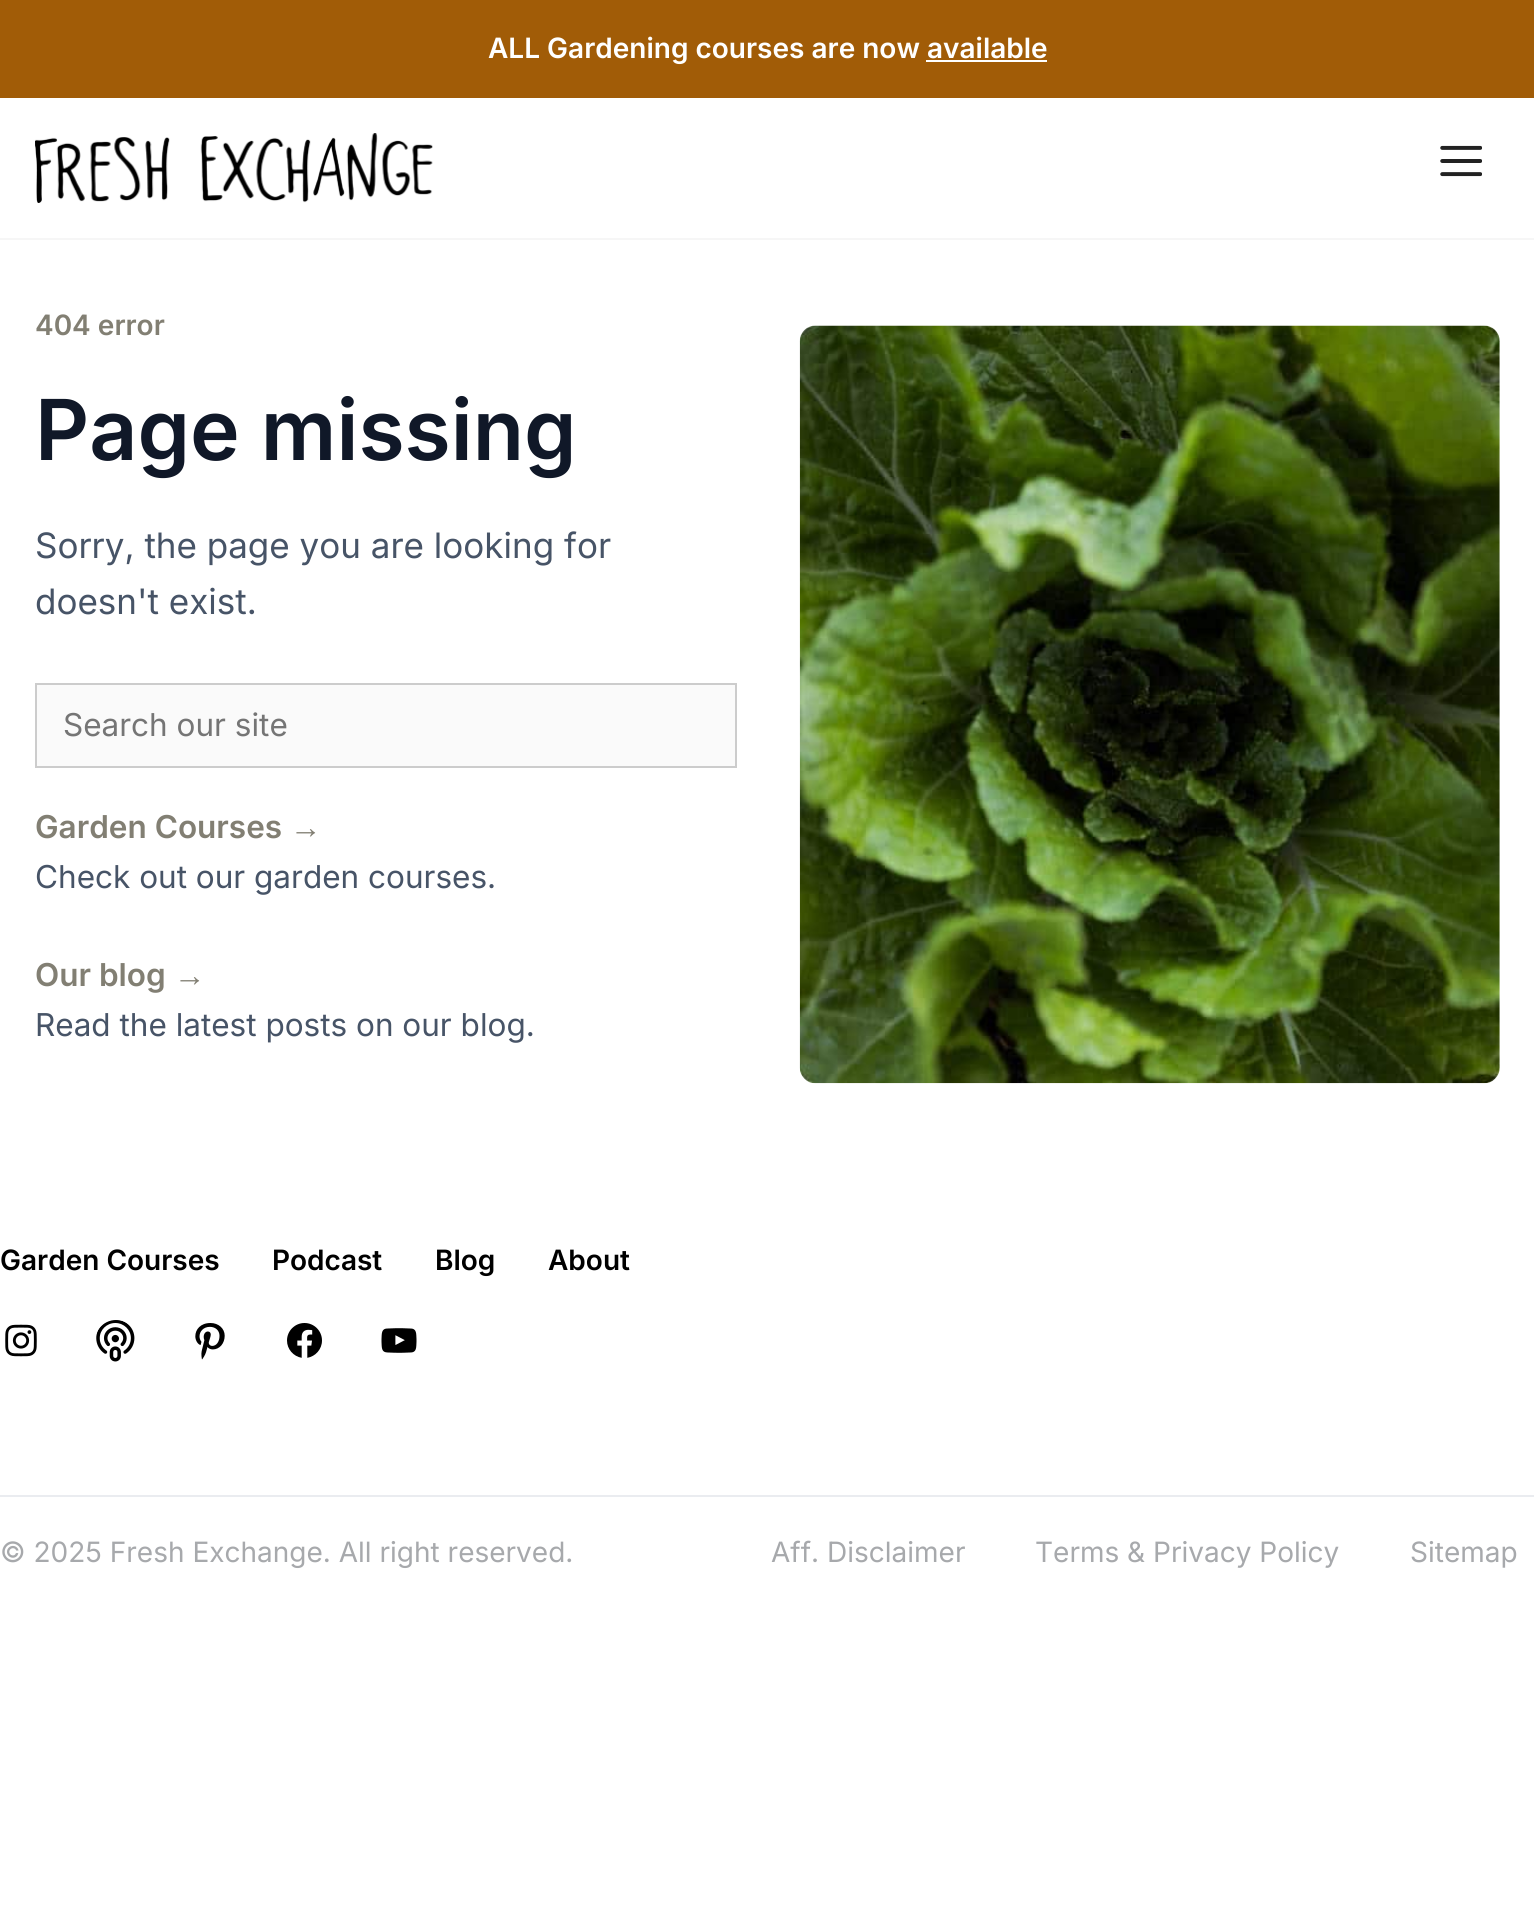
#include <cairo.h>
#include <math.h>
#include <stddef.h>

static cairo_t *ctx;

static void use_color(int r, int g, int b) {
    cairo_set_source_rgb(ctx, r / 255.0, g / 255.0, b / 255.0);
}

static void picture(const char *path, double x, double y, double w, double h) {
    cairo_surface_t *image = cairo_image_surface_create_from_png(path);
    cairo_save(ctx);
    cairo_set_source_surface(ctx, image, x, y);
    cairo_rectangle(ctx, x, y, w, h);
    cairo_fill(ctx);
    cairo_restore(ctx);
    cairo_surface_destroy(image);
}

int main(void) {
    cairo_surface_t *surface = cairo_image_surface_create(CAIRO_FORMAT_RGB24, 1534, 1928);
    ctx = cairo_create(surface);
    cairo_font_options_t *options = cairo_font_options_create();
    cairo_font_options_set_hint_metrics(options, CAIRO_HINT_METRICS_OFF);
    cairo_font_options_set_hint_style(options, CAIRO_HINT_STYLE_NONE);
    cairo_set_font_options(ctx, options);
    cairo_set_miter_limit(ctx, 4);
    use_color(255, 255, 255);
    cairo_paint(ctx);
    use_color(161, 92, 7);
    cairo_rectangle(ctx, 0, 0, 1534, 98);
    cairo_fill(ctx);
    cairo_select_font_face(ctx, "Inter SemiBold", CAIRO_FONT_SLANT_NORMAL, CAIRO_FONT_WEIGHT_NORMAL);
    cairo_set_font_size(ctx, 28);
    use_color(255, 255, 255);
    cairo_move_to(ctx, 488, 58);
    cairo_show_text(ctx, "ALL Gardening courses are now available");
    cairo_rectangle(ctx, 926, 60, 121, 2);
    cairo_fill(ctx);
    use_color(246, 246, 246);
    cairo_rectangle(ctx, 0, 238, 1534, 2);
    cairo_fill(ctx);
    picture("img1.png", 35, 133, 398, 70);
    picture("img2.png", 1440, 145, 42, 32);
    use_color(130, 127, 115);
    cairo_move_to(ctx, 35, 335);
    cairo_show_text(ctx, "404 error");
    cairo_set_font_size(ctx, 84);
    use_color(16, 24, 40);
    cairo_move_to(ctx, 35, 460);
    cairo_show_text(ctx, "Page missing");
    cairo_select_font_face(ctx, "Inter", CAIRO_FONT_SLANT_NORMAL, CAIRO_FONT_WEIGHT_NORMAL);
    cairo_set_font_size(ctx, 35);
    use_color(71, 84, 103);
    cairo_move_to(ctx, 35, 558);
    cairo_show_text(ctx, "Sorry, the page you are looking for");
    cairo_move_to(ctx, 35, 614);
    cairo_show_text(ctx, "doesn't exist.");
    use_color(250, 250, 250);
    cairo_rectangle(ctx, 36, 684, 700, 83);
    cairo_fill_preserve(ctx);
    use_color(204, 204, 204);
    cairo_stroke(ctx);
    cairo_set_font_size(ctx, 31.5);
    use_color(117, 117, 117);
    cairo_move_to(ctx, 63, 736);
    cairo_show_text(ctx, "Search our site");
    cairo_select_font_face(ctx, "Inter SemiBold", CAIRO_FONT_SLANT_NORMAL, CAIRO_FONT_WEIGHT_NORMAL);
    use_color(130, 127, 115);
    cairo_move_to(ctx, 35, 838);
    cairo_show_text(ctx, "Garden Courses");
    cairo_select_font_face(ctx, "Liberation Sans", CAIRO_FONT_SLANT_NORMAL, CAIRO_FONT_WEIGHT_BOLD);
    cairo_move_to(ctx, 290, 838);
    cairo_show_text(ctx, "→");
    cairo_select_font_face(ctx, "Inter", CAIRO_FONT_SLANT_NORMAL, CAIRO_FONT_WEIGHT_NORMAL);
    use_color(71, 84, 103);
    cairo_move_to(ctx, 35, 888);
    cairo_show_text(ctx, "Check out our garden courses.");
    cairo_select_font_face(ctx, "Inter SemiBold", CAIRO_FONT_SLANT_NORMAL, CAIRO_FONT_WEIGHT_NORMAL);
    use_color(130, 127, 115);
    cairo_move_to(ctx, 35, 986);
    cairo_show_text(ctx, "Our blog");
    cairo_select_font_face(ctx, "Liberation Sans", CAIRO_FONT_SLANT_NORMAL, CAIRO_FONT_WEIGHT_BOLD);
    cairo_move_to(ctx, 174, 986);
    cairo_show_text(ctx, "→");
    cairo_select_font_face(ctx, "Inter", CAIRO_FONT_SLANT_NORMAL, CAIRO_FONT_WEIGHT_NORMAL);
    use_color(71, 84, 103);
    cairo_move_to(ctx, 35, 1036);
    cairo_show_text(ctx, "Read the latest posts on our blog.");
    picture("img3.png", 799, 325, 701, 759);
    cairo_select_font_face(ctx, "Inter SemiBold", CAIRO_FONT_SLANT_NORMAL, CAIRO_FONT_WEIGHT_NORMAL);
    cairo_set_font_size(ctx, 28);
    use_color(0, 0, 0);
    cairo_move_to(ctx, 0, 1270);
    cairo_show_text(ctx, "Garden Courses");
    cairo_move_to(ctx, 272, 1270);
    cairo_show_text(ctx, "Podcast");
    cairo_move_to(ctx, 435, 1270);
    cairo_show_text(ctx, "Blog");
    cairo_move_to(ctx, 548, 1270);
    cairo_show_text(ctx, "About");
    picture("img4.png", 5, 1324, 32, 33);
    picture("img5.png", 96, 1320, 39, 42);
    picture("img6.png", 195, 1323, 30, 37);
    picture("img7.png", 287, 1323, 35, 35);
    picture("img8.png", 381, 1328, 36, 25);
    use_color(234, 236, 240);
    cairo_rectangle(ctx, 0, 1495, 1534, 2);
    cairo_fill(ctx);
    cairo_select_font_face(ctx, "Inter", CAIRO_FONT_SLANT_NORMAL, CAIRO_FONT_WEIGHT_NORMAL);
    use_color(167, 169, 172);
    cairo_move_to(ctx, 0, 1562);
    cairo_show_text(ctx, "© 2025 Fresh Exchange. All right reserved.");
    cairo_move_to(ctx, 771, 1562);
    cairo_show_text(ctx, "Aff. Disclaimer");
    cairo_move_to(ctx, 1035, 1562);
    cairo_show_text(ctx, "Terms & Privacy Policy");
    cairo_move_to(ctx, 1410, 1562);
    cairo_show_text(ctx, "Sitemap");
    cairo_surface_write_to_png(surface, "result.png");
    cairo_font_options_destroy(options);
    cairo_destroy(ctx);
    cairo_surface_destroy(surface);
    return 0;
}
